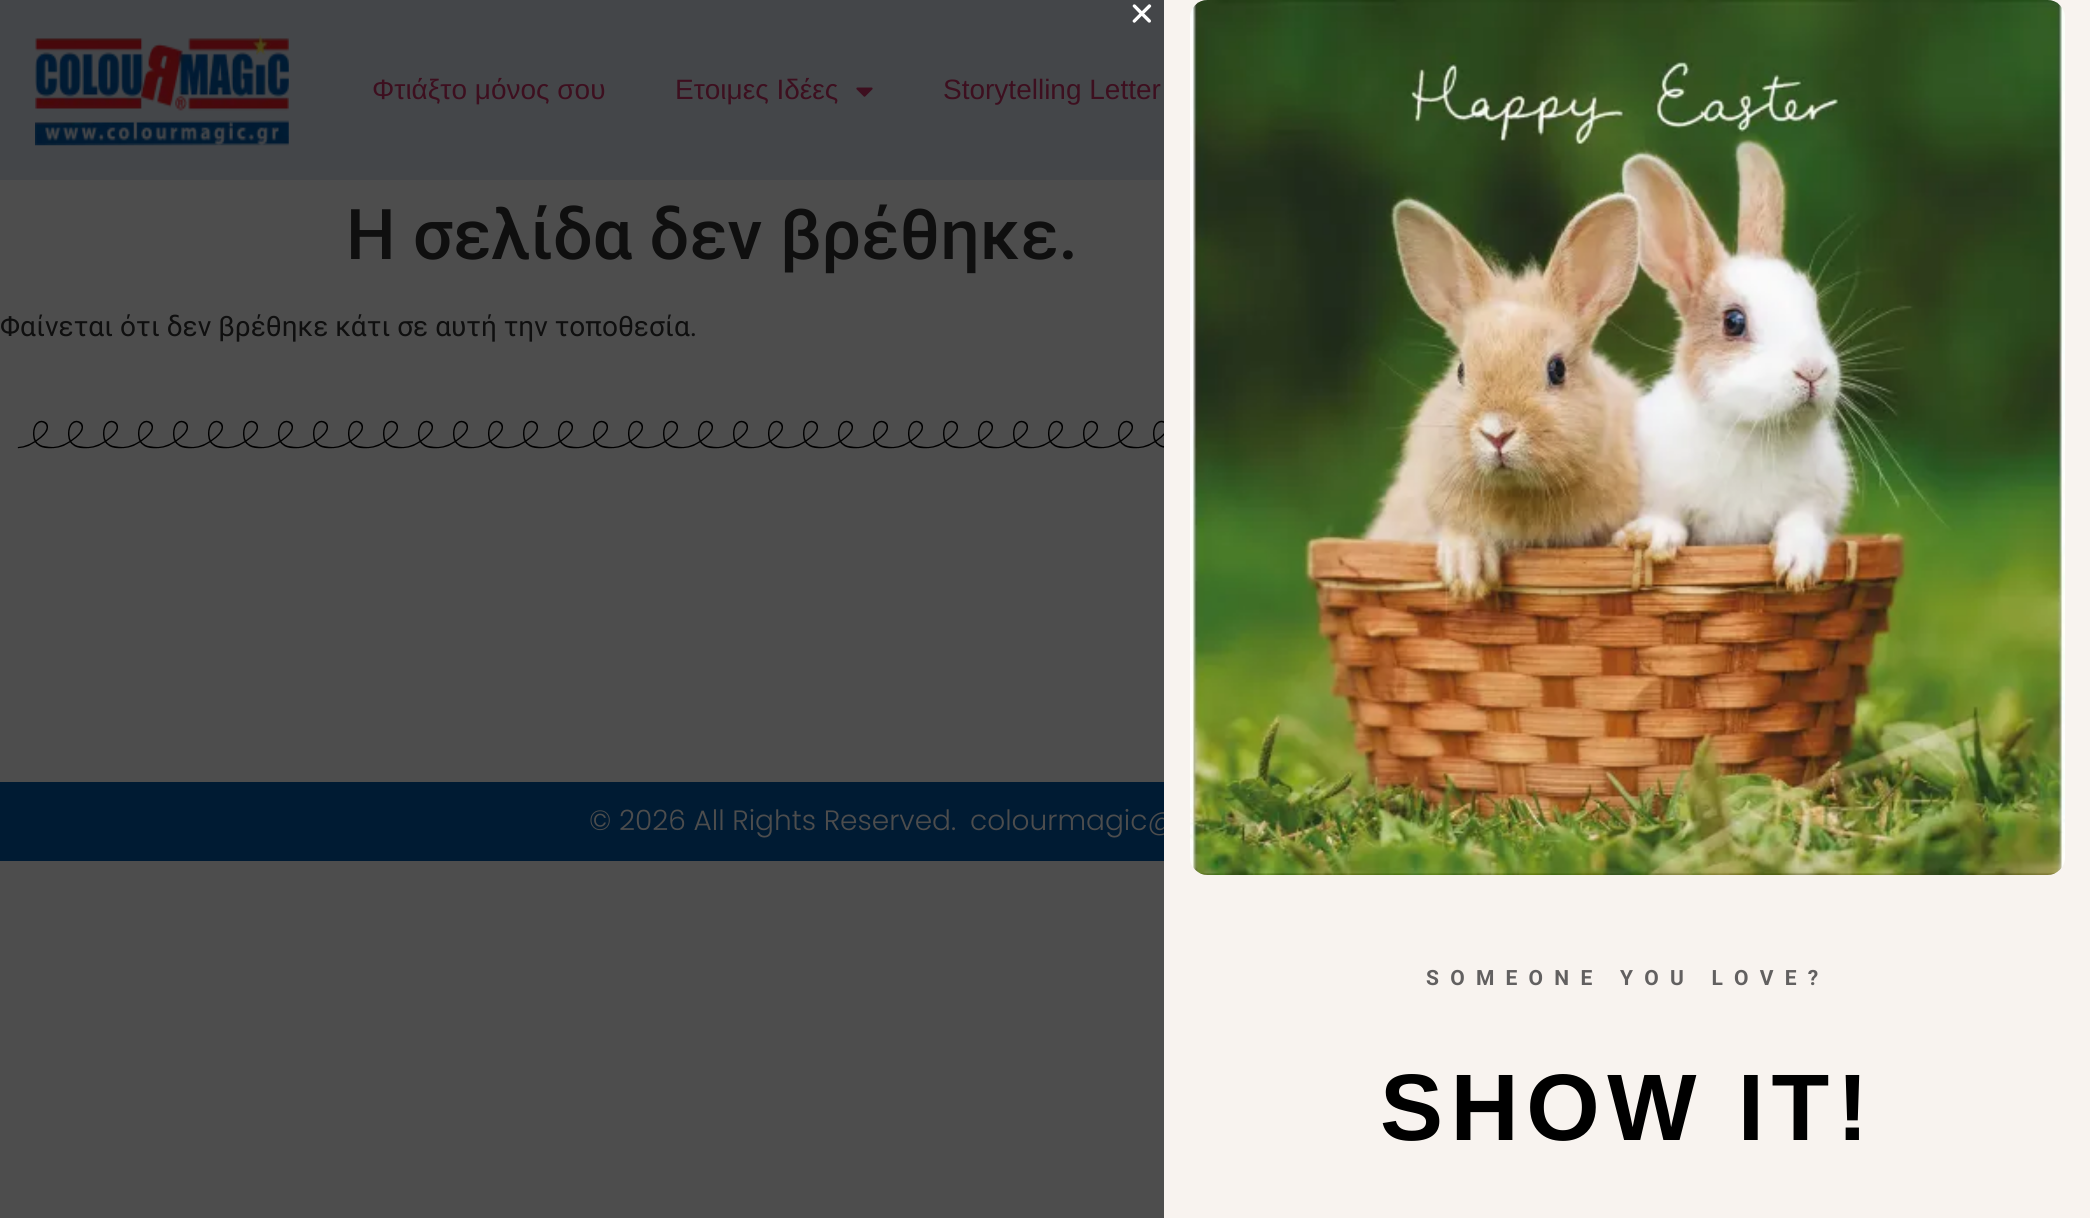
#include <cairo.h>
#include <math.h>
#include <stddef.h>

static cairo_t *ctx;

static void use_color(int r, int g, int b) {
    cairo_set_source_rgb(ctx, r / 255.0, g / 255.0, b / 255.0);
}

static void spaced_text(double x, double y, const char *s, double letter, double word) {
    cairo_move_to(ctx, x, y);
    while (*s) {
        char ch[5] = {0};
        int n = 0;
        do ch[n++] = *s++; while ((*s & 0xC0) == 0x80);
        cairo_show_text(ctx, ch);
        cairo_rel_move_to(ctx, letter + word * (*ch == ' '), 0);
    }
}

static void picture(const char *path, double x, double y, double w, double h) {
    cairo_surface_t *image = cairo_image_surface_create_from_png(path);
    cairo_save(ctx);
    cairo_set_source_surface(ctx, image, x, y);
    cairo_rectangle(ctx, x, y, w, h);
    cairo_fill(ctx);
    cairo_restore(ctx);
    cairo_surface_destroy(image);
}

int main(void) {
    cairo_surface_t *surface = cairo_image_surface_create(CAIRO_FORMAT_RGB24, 2090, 1218);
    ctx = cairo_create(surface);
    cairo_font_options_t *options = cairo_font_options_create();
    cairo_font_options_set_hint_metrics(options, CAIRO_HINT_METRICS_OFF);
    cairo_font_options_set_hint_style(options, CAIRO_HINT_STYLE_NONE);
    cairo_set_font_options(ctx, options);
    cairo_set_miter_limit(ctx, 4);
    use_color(77, 77, 77);
    cairo_paint(ctx);
    use_color(68, 70, 73);
    cairo_rectangle(ctx, 0, 0, 1164, 180);
    cairo_fill(ctx);
    picture("img1.png", 35, 35, 254, 111);
    cairo_select_font_face(ctx, "Liberation Sans", CAIRO_FONT_SLANT_NORMAL, CAIRO_FONT_WEIGHT_NORMAL);
    cairo_set_font_size(ctx, 28);
    use_color(61, 15, 31);
    cairo_move_to(ctx, 372, 99);
    cairo_show_text(ctx, "Φτιάξτο μόνος σου");
    cairo_move_to(ctx, 675, 99);
    cairo_show_text(ctx, "Ετοιμες Ιδέες");
    picture("img2.png", 856, 87, 17, 10);
    cairo_move_to(ctx, 943, 99);
    cairo_show_text(ctx, "Storytelling Letter");
    cairo_select_font_face(ctx, "Roboto Medium", CAIRO_FONT_SLANT_NORMAL, CAIRO_FONT_WEIGHT_NORMAL);
    cairo_set_font_size(ctx, 70);
    use_color(15, 15, 15);
    cairo_move_to(ctx, 346, 259);
    cairo_show_text(ctx, "Η σελίδα δεν βρέθηκε.");
    cairo_select_font_face(ctx, "Roboto", CAIRO_FONT_SLANT_NORMAL, CAIRO_FONT_WEIGHT_NORMAL);
    cairo_set_font_size(ctx, 28);
    cairo_move_to(ctx, 0, 336);
    cairo_show_text(ctx, "Φαίνεται ότι δεν βρέθηκε κάτι σε αυτή την τοποθεσία.");
    picture("img3.png", 17, 420, 1147, 29);
    use_color(0, 27, 51);
    cairo_rectangle(ctx, 0, 782, 1164, 79);
    cairo_fill(ctx);
    cairo_select_font_face(ctx, "Poppins Light", CAIRO_FONT_SLANT_NORMAL, CAIRO_FONT_WEIGHT_NORMAL);
    use_color(77, 77, 77);
    cairo_move_to(ctx, 589, 830);
    cairo_show_text(ctx, "© 2026 All Rights Reserved.");
    cairo_move_to(ctx, 970, 830);
    cairo_show_text(ctx, "colourmagic@");
    use_color(248, 243, 239);
    cairo_rectangle(ctx, 1164, 0, 926, 1218);
    cairo_fill(ctx);
    picture("img4.png", 1132, 4, 20, 19);
    picture("img5.png", 1190, 0, 875, 875);
    cairo_select_font_face(ctx, "Roboto", CAIRO_FONT_SLANT_NORMAL, CAIRO_FONT_WEIGHT_BOLD);
    cairo_set_font_size(ctx, 21);
    use_color(98, 96, 96);
    spaced_text(1426, 985, "SOMEONE YOU LOVE?", 11.25, 0);
    cairo_select_font_face(ctx, "Liberation Sans", CAIRO_FONT_SLANT_NORMAL, CAIRO_FONT_WEIGHT_BOLD);
    cairo_set_font_size(ctx, 94.5);
    use_color(0, 0, 0);
    spaced_text(1380, 1140, "SHOW IT!", 7.5, 0);
    cairo_surface_write_to_png(surface, "result.png");
    cairo_font_options_destroy(options);
    cairo_destroy(ctx);
    cairo_surface_destroy(surface);
    return 0;
}
